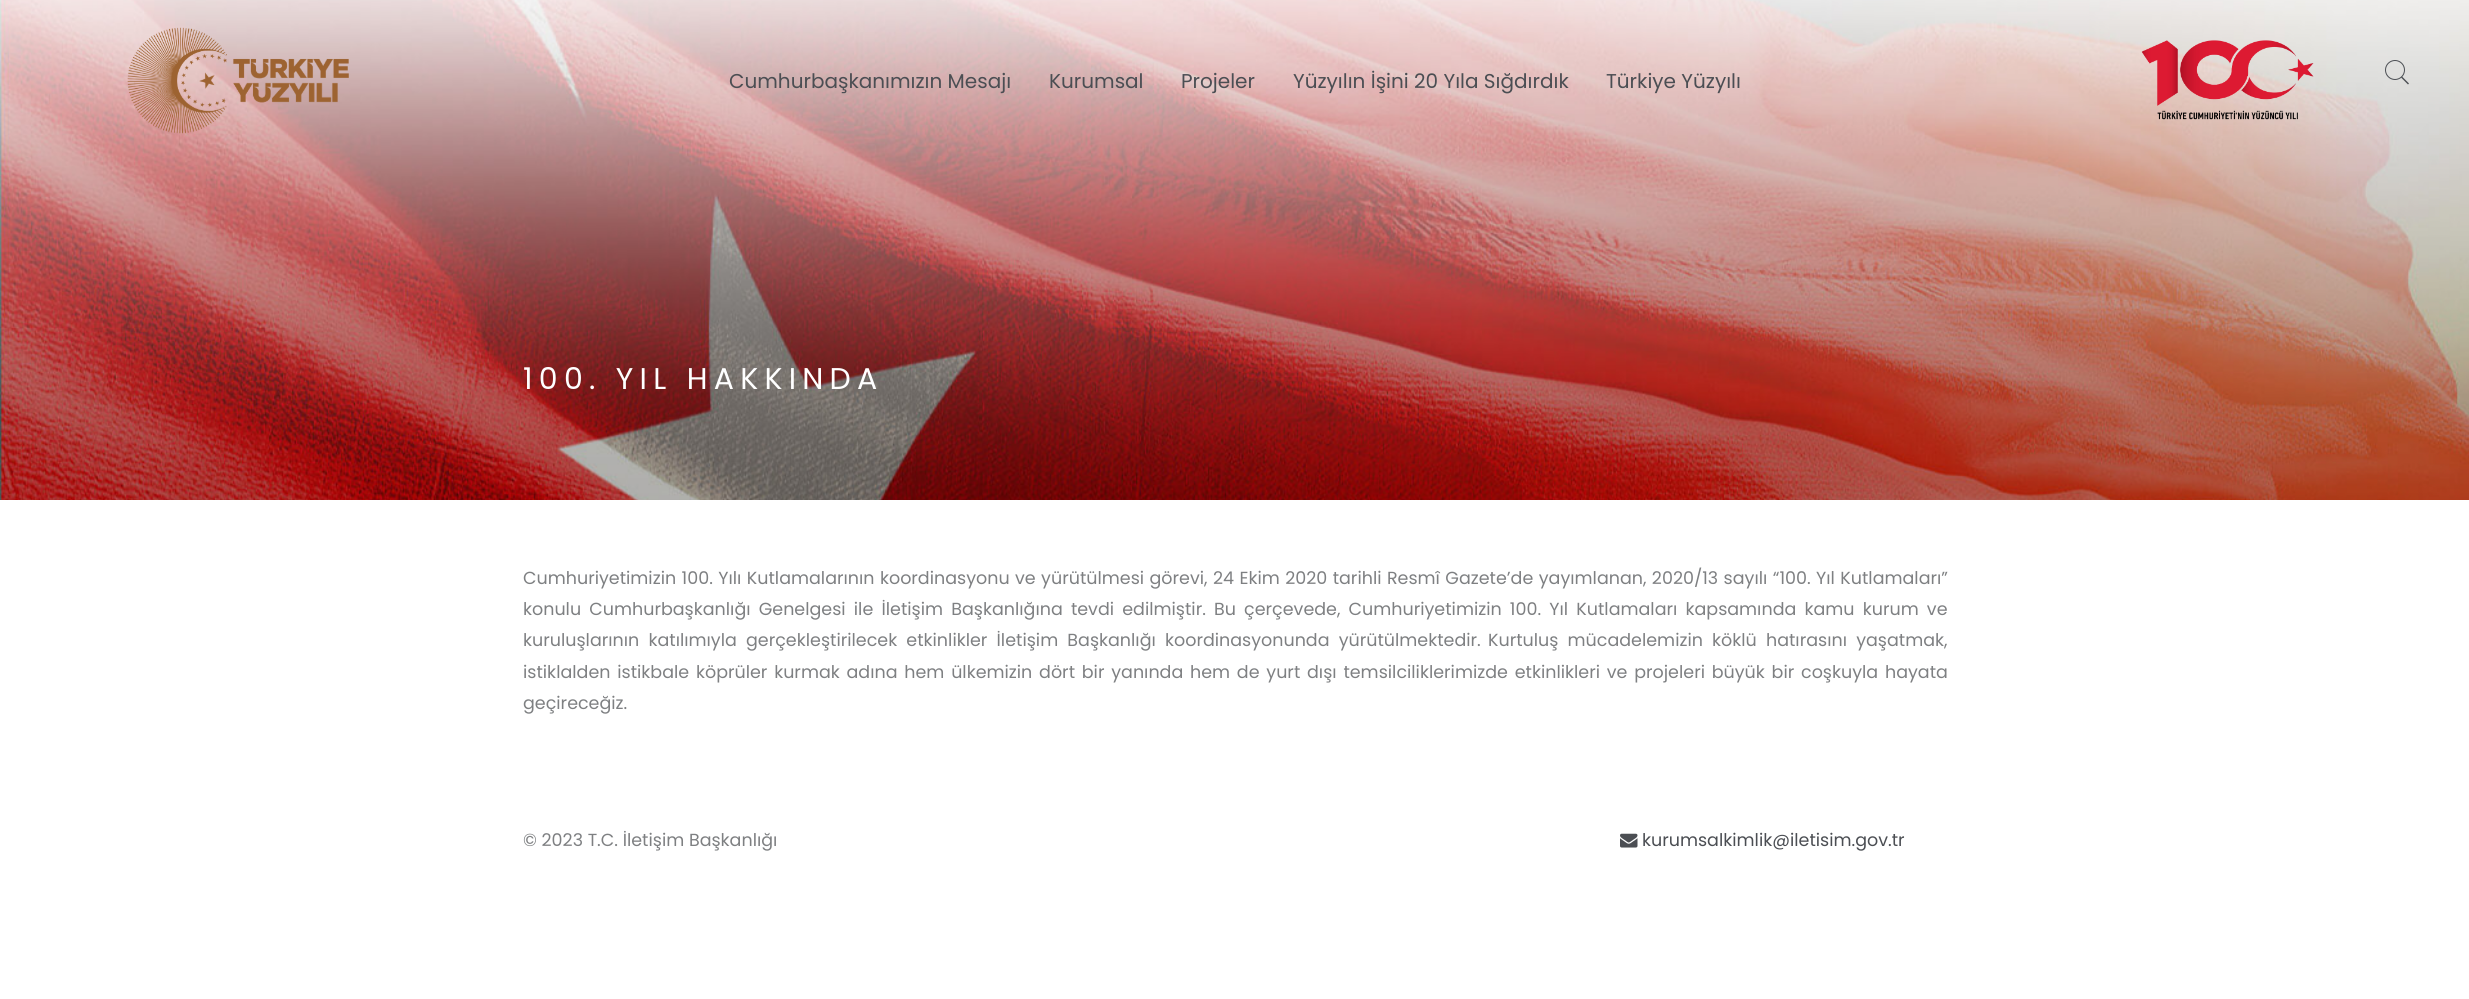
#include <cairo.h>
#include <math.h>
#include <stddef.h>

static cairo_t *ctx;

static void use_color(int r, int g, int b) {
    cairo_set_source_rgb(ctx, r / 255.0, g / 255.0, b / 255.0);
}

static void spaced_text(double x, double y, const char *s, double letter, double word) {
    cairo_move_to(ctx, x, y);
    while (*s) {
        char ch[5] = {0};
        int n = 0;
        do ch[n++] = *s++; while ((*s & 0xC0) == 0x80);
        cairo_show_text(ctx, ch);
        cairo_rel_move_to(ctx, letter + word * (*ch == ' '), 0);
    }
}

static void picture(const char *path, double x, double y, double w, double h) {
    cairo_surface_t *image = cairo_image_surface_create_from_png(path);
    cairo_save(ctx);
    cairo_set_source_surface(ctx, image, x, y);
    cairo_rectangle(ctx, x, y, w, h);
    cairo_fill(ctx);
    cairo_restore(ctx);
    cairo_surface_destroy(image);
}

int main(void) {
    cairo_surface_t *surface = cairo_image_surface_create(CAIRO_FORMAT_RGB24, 2469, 999);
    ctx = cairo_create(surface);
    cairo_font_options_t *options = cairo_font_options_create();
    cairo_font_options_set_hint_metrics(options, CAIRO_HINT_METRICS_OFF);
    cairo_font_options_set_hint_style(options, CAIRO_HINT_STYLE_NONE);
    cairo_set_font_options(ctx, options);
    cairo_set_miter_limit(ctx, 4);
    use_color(255, 255, 255);
    cairo_paint(ctx);
    picture("img3.png", 0, 0, 2469, 500);
    picture("img1.png", 127, 27, 222, 107);
    cairo_select_font_face(ctx, "Poppins", CAIRO_FONT_SLANT_NORMAL, CAIRO_FONT_WEIGHT_NORMAL);
    cairo_set_font_size(ctx, 20);
    use_color(75, 78, 83);
    cairo_move_to(ctx, 729, 88);
    cairo_show_text(ctx, "Cumhurbaşkanımızın Mesajı");
    cairo_move_to(ctx, 1049, 88);
    cairo_show_text(ctx, "Kurumsal");
    cairo_move_to(ctx, 1181, 88);
    cairo_show_text(ctx, "Projeler");
    cairo_move_to(ctx, 1293, 88);
    cairo_show_text(ctx, "Yüzyılın İşini 20 Yıla Sığdırdık");
    cairo_move_to(ctx, 1606, 88);
    cairo_show_text(ctx, "Türkiye Yüzyılı");
    cairo_new_path(ctx);
    cairo_arc(ctx, 2395, 70, 9.5, 0, 2 * M_PI);
    cairo_set_line_width(ctx, 1);
    cairo_stroke(ctx);
    cairo_new_path(ctx);
    cairo_move_to(ctx, 2402, 76.5);
    cairo_line_to(ctx, 2409, 83.5);
    cairo_line_to(ctx, 2408, 84.5);
    cairo_line_to(ctx, 2401, 77.5);
    cairo_close_path(ctx);
    cairo_fill(ctx);
    picture("img2.png", 2141, 40, 173, 80);
    cairo_set_font_size(ctx, 30);
    use_color(255, 255, 255);
    spaced_text(523, 389, "100. YIL HAKKINDA", 6.25, 0);
    cairo_set_font_size(ctx, 17.5);
    use_color(126, 128, 130);
    spaced_text(523, 584, "Cumhuriyetimizin 100. Yılı Kutlamalarının koordinasyonu ve yürütülmesi görevi, 24 Ekim 2020 tarihli Resmî Gazete’de yayımlanan, 2020/13 sayılı “100. Yıl Kutlamaları”", 0, 0.75);
    spaced_text(523, 615, "konulu Cumhurbaşkanlığı Genelgesi ile İletişim Başkanlığına tevdi edilmiştir.", 0, 3.5);
    spaced_text(1214, 615, "Bu çerçevede, Cumhuriyetimizin 100. Yıl Kutlamaları kapsamında kamu kurum ve", 0, 3.5);
    spaced_text(523, 646, "kuruluşlarının katılımıyla gerçekleştirilecek etkinlikler İletişim Başkanlığı koordinasyonunda yürütülmektedir.", 0, 4.5);
    spaced_text(1488, 646, "Kurtuluş mücadelemizin köklü hatırasını yaşatmak,", 0, 4.5);
    spaced_text(523, 678, "istiklalden istikbale köprüler kurmak adına hem ülkemizin dört bir yanında hem de yurt dışı temsilciliklerimizde etkinlikleri ve projeleri büyük bir coşkuyla hayata", 0, 2.1);
    cairo_move_to(ctx, 523, 709);
    cairo_show_text(ctx, "geçireceğiz.");
    cairo_move_to(ctx, 523, 846);
    cairo_show_text(ctx, "© 2023 T.C. İletişim Başkanlığı");
    picture("img4.png", 1620, 833, 18, 15);
    use_color(75, 78, 83);
    cairo_move_to(ctx, 1642, 846);
    cairo_show_text(ctx, "kurumsalkimlik@iletisim.gov.tr");
    cairo_surface_write_to_png(surface, "result.png");
    cairo_font_options_destroy(options);
    cairo_destroy(ctx);
    cairo_surface_destroy(surface);
    return 0;
}
